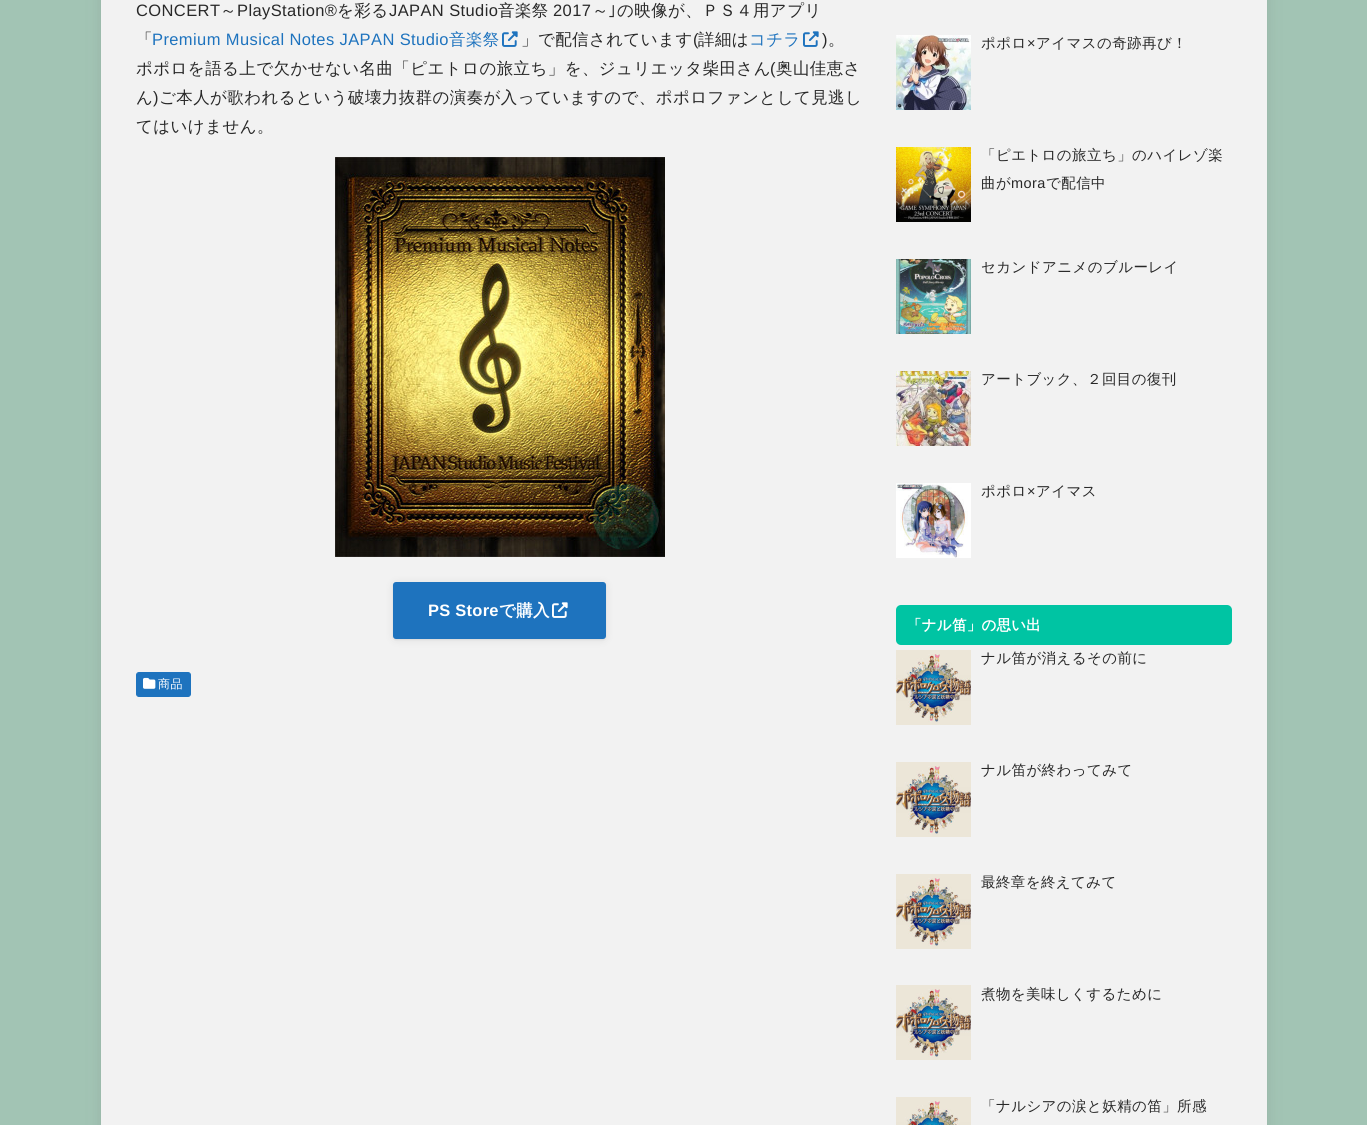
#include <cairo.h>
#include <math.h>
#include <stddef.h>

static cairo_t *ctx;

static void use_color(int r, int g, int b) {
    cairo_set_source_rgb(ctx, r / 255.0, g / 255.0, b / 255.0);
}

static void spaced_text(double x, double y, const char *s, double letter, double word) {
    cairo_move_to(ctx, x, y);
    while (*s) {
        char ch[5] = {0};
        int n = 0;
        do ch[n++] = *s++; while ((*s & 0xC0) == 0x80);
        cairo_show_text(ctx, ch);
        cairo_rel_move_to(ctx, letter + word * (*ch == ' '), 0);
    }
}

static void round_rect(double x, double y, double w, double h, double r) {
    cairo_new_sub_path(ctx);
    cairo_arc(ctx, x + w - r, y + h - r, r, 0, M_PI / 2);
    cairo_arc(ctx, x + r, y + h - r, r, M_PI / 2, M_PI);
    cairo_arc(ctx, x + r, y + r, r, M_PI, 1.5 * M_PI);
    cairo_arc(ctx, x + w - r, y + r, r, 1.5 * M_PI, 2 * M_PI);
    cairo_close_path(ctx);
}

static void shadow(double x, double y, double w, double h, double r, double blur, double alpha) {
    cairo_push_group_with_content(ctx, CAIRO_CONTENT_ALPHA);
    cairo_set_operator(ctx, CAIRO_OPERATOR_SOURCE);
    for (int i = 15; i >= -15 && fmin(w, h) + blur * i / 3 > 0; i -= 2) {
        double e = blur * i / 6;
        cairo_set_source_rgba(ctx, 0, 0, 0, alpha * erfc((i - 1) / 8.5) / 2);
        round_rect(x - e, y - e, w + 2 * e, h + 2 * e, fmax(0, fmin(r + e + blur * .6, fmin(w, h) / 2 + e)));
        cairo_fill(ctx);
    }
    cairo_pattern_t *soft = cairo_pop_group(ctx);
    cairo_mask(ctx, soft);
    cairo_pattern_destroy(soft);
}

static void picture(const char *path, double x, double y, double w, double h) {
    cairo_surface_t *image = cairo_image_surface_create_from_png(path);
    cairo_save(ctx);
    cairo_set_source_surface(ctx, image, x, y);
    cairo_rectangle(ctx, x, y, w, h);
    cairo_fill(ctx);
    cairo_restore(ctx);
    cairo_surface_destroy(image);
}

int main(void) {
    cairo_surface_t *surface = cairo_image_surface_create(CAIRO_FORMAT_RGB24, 1367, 1125);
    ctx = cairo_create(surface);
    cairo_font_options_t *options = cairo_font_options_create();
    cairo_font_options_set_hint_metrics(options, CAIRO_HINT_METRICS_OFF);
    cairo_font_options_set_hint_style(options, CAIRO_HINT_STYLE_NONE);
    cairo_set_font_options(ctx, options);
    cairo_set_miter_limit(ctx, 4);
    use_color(162, 196, 180);
    cairo_paint(ctx);
    use_color(102, 102, 102);
    shadow(101, -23, 1166, 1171, 0, 7.5, 0.2);
    use_color(242, 242, 242);
    cairo_rectangle(ctx, 101, 0, 1166, 1125);
    cairo_fill(ctx);
    cairo_select_font_face(ctx, "Liberation Sans", CAIRO_FONT_SLANT_NORMAL, CAIRO_FONT_WEIGHT_NORMAL);
    cairo_set_font_size(ctx, 16.5);
    use_color(40, 40, 40);
    spaced_text(136, 16, "CONCERT", 0.4, 0);
    cairo_select_font_face(ctx, "WenQuanYi Zen Hei Medium", CAIRO_FONT_SLANT_NORMAL, CAIRO_FONT_WEIGHT_NORMAL);
    spaced_text(220, 16, "～", 0.4, 0);
    cairo_select_font_face(ctx, "Liberation Sans", CAIRO_FONT_SLANT_NORMAL, CAIRO_FONT_WEIGHT_NORMAL);
    spaced_text(237, 16, "PlayStation®", 0.4, 0);
    cairo_select_font_face(ctx, "WenQuanYi Zen Hei Medium", CAIRO_FONT_SLANT_NORMAL, CAIRO_FONT_WEIGHT_NORMAL);
    spaced_text(337, 16, "を彩る", 0.4, 0);
    cairo_select_font_face(ctx, "Liberation Sans", CAIRO_FONT_SLANT_NORMAL, CAIRO_FONT_WEIGHT_NORMAL);
    spaced_text(389, 16, "JAPAN Studio", 0.4, 0);
    cairo_select_font_face(ctx, "WenQuanYi Zen Hei Medium", CAIRO_FONT_SLANT_NORMAL, CAIRO_FONT_WEIGHT_NORMAL);
    spaced_text(498, 16, "音楽祭", 0.4, 0);
    cairo_select_font_face(ctx, "Liberation Sans", CAIRO_FONT_SLANT_NORMAL, CAIRO_FONT_WEIGHT_NORMAL);
    spaced_text(553, 16, "2017", 0.4, 0);
    cairo_select_font_face(ctx, "WenQuanYi Zen Hei Medium", CAIRO_FONT_SLANT_NORMAL, CAIRO_FONT_WEIGHT_NORMAL);
    spaced_text(592, 16, "～", 0.4, 0);
    cairo_select_font_face(ctx, "IPAPGothic", CAIRO_FONT_SLANT_NORMAL, CAIRO_FONT_WEIGHT_NORMAL);
    spaced_text(608, 16, "｣", 0.4, 0);
    cairo_select_font_face(ctx, "WenQuanYi Zen Hei Medium", CAIRO_FONT_SLANT_NORMAL, CAIRO_FONT_WEIGHT_NORMAL);
    spaced_text(617, 16, "の映像が、ＰＳ４用アプリ", 0.4, 0);
    spaced_text(136, 45, "「", 0.4, 0);
    cairo_select_font_face(ctx, "Liberation Sans", CAIRO_FONT_SLANT_NORMAL, CAIRO_FONT_WEIGHT_NORMAL);
    use_color(30, 115, 190);
    spaced_text(152, 45, "Premium Musical Notes JAPAN Studio", 0.4, 0);
    cairo_select_font_face(ctx, "WenQuanYi Zen Hei Medium", CAIRO_FONT_SLANT_NORMAL, CAIRO_FONT_WEIGHT_NORMAL);
    spaced_text(449, 45, "音楽祭", 0.4, 0);
    picture("img1.png", 502, 31, 16, 16);
    use_color(40, 40, 40);
    spaced_text(521, 45, "」で配信されています", 0.4, 0);
    cairo_select_font_face(ctx, "Liberation Sans", CAIRO_FONT_SLANT_NORMAL, CAIRO_FONT_WEIGHT_NORMAL);
    spaced_text(693, 45, "(", 0.4, 0);
    cairo_select_font_face(ctx, "WenQuanYi Zen Hei Medium", CAIRO_FONT_SLANT_NORMAL, CAIRO_FONT_WEIGHT_NORMAL);
    spaced_text(698, 45, "詳細は", 0.4, 0);
    use_color(30, 115, 190);
    spaced_text(749, 45, "コチラ", 0.4, 0);
    picture("img1.png", 803, 31, 16, 16);
    cairo_select_font_face(ctx, "Liberation Sans", CAIRO_FONT_SLANT_NORMAL, CAIRO_FONT_WEIGHT_NORMAL);
    use_color(40, 40, 40);
    spaced_text(822, 45, ")", 0.4, 0);
    cairo_select_font_face(ctx, "WenQuanYi Zen Hei Medium", CAIRO_FONT_SLANT_NORMAL, CAIRO_FONT_WEIGHT_NORMAL);
    spaced_text(828, 45, "。", 0.4, 0);
    spaced_text(136, 74, "ポポロを語る上で欠かせない名曲「ピエトロの旅立ち」を、ジュリエッタ柴田さん", 0.4, 0);
    cairo_select_font_face(ctx, "Liberation Sans", CAIRO_FONT_SLANT_NORMAL, CAIRO_FONT_WEIGHT_NORMAL);
    spaced_text(770, 74, "(", 0.4, 0);
    cairo_select_font_face(ctx, "WenQuanYi Zen Hei Medium", CAIRO_FONT_SLANT_NORMAL, CAIRO_FONT_WEIGHT_NORMAL);
    spaced_text(776, 74, "奥山佳恵さ", 0.4, 0);
    spaced_text(136, 103, "ん", 0.4, 0);
    cairo_select_font_face(ctx, "Liberation Sans", CAIRO_FONT_SLANT_NORMAL, CAIRO_FONT_WEIGHT_NORMAL);
    spaced_text(153, 103, ")", 0.4, 0);
    cairo_select_font_face(ctx, "WenQuanYi Zen Hei Medium", CAIRO_FONT_SLANT_NORMAL, CAIRO_FONT_WEIGHT_NORMAL);
    spaced_text(159, 103, "ご本人が歌われるという破壊力抜群の演奏が入っていますので、ポポロファンとして見逃し", 0.4, 0);
    spaced_text(136, 132, "てはいけません。", 0.4, 0);
    picture("img2.png", 335, 157, 330, 400);
    use_color(0, 0, 0);
    shadow(393, 583, 213, 57, 3, 5, 0.07);
    shadow(393, 583, 213, 57, 3, 1, 0.07);
    use_color(30, 115, 190);
    round_rect(394, 583, 211, 55, 2);
    cairo_fill_preserve(ctx);
    cairo_stroke(ctx);
    cairo_select_font_face(ctx, "Liberation Sans", CAIRO_FONT_SLANT_NORMAL, CAIRO_FONT_WEIGHT_BOLD);
    use_color(255, 255, 255);
    spaced_text(428, 616, "PS Store", 0.25, 0);
    cairo_select_font_face(ctx, "WenQuanYi Zen Hei", CAIRO_FONT_SLANT_NORMAL, CAIRO_FONT_WEIGHT_BOLD);
    spaced_text(499, 616, "で購入", 0.25, 0);
    picture("img3.png", 552, 602, 16, 16);
    use_color(30, 115, 190);
    round_rect(136.5, 672.5, 54, 24, 2.5);
    cairo_fill_preserve(ctx);
    cairo_set_line_width(ctx, 1);
    cairo_stroke(ctx);
    picture("img4.png", 143, 677, 13, 12);
    cairo_select_font_face(ctx, "WenQuanYi Zen Hei Medium", CAIRO_FONT_SLANT_NORMAL, CAIRO_FONT_WEIGHT_NORMAL);
    cairo_set_font_size(ctx, 12);
    use_color(255, 255, 255);
    spaced_text(158, 688, "商品", 0.4, 0);
    picture("img5.png", 896, 35, 75, 75);
    cairo_set_font_size(ctx, 14.5);
    use_color(40, 40, 40);
    spaced_text(981, 48, "ポポロ", 0.4, 0);
    cairo_select_font_face(ctx, "Liberation Sans", CAIRO_FONT_SLANT_NORMAL, CAIRO_FONT_WEIGHT_NORMAL);
    spaced_text(1027, 48, "×", 0.4, 0);
    cairo_select_font_face(ctx, "WenQuanYi Zen Hei Medium", CAIRO_FONT_SLANT_NORMAL, CAIRO_FONT_WEIGHT_NORMAL);
    spaced_text(1036, 48, "アイマスの奇跡再び！", 0.4, 0);
    picture("img6.png", 896, 147, 75, 75);
    spaced_text(981, 160, "「ピエトロの旅立ち」のハイレゾ楽", 0.4, 0);
    spaced_text(981, 188, "曲が", 0.4, 0);
    cairo_select_font_face(ctx, "Liberation Sans", CAIRO_FONT_SLANT_NORMAL, CAIRO_FONT_WEIGHT_NORMAL);
    spaced_text(1011, 188, "mora", 0.4, 0);
    cairo_select_font_face(ctx, "WenQuanYi Zen Hei Medium", CAIRO_FONT_SLANT_NORMAL, CAIRO_FONT_WEIGHT_NORMAL);
    spaced_text(1046, 188, "で配信中", 0.4, 0);
    picture("img7.png", 896, 259, 75, 75);
    spaced_text(981, 272, "セカンドアニメのブルーレイ", 0.4, 0);
    picture("img8.png", 896, 371, 75, 75);
    spaced_text(981, 384, "アートブック、２回目の復刊", 0.4, 0);
    picture("img9.png", 896, 483, 75, 75);
    spaced_text(981, 496, "ポポロ", 0.4, 0);
    cairo_select_font_face(ctx, "Liberation Sans", CAIRO_FONT_SLANT_NORMAL, CAIRO_FONT_WEIGHT_NORMAL);
    spaced_text(1027, 496, "×", 0.4, 0);
    cairo_select_font_face(ctx, "WenQuanYi Zen Hei Medium", CAIRO_FONT_SLANT_NORMAL, CAIRO_FONT_WEIGHT_NORMAL);
    spaced_text(1036, 496, "アイマス", 0.4, 0);
    use_color(0, 196, 163);
    round_rect(896, 605, 336, 40, 5);
    cairo_fill(ctx);
    cairo_select_font_face(ctx, "WenQuanYi Zen Hei", CAIRO_FONT_SLANT_NORMAL, CAIRO_FONT_WEIGHT_BOLD);
    use_color(255, 255, 255);
    spaced_text(907, 630, "「ナル笛」の思い出", 0.25, 0);
    picture("img10.png", 896, 650, 75, 75);
    cairo_select_font_face(ctx, "WenQuanYi Zen Hei Medium", CAIRO_FONT_SLANT_NORMAL, CAIRO_FONT_WEIGHT_NORMAL);
    use_color(40, 40, 40);
    spaced_text(981, 663, "ナル笛が消えるその前に", 0.4, 0);
    picture("img10.png", 896, 762, 75, 75);
    spaced_text(981, 775, "ナル笛が終わってみて", 0.4, 0);
    picture("img10.png", 896, 874, 75, 75);
    spaced_text(981, 887, "最終章を終えてみて", 0.4, 0);
    picture("img10.png", 896, 985, 75, 75);
    spaced_text(981, 999, "煮物を美味しくするために", 0.4, 0);
    picture("img11.png", 896, 1097, 75, 28);
    spaced_text(981, 1111, "「ナルシアの涙と妖精の笛」所感", 0.4, 0);
    cairo_surface_write_to_png(surface, "result.png");
    cairo_font_options_destroy(options);
    cairo_destroy(ctx);
    cairo_surface_destroy(surface);
    return 0;
}
